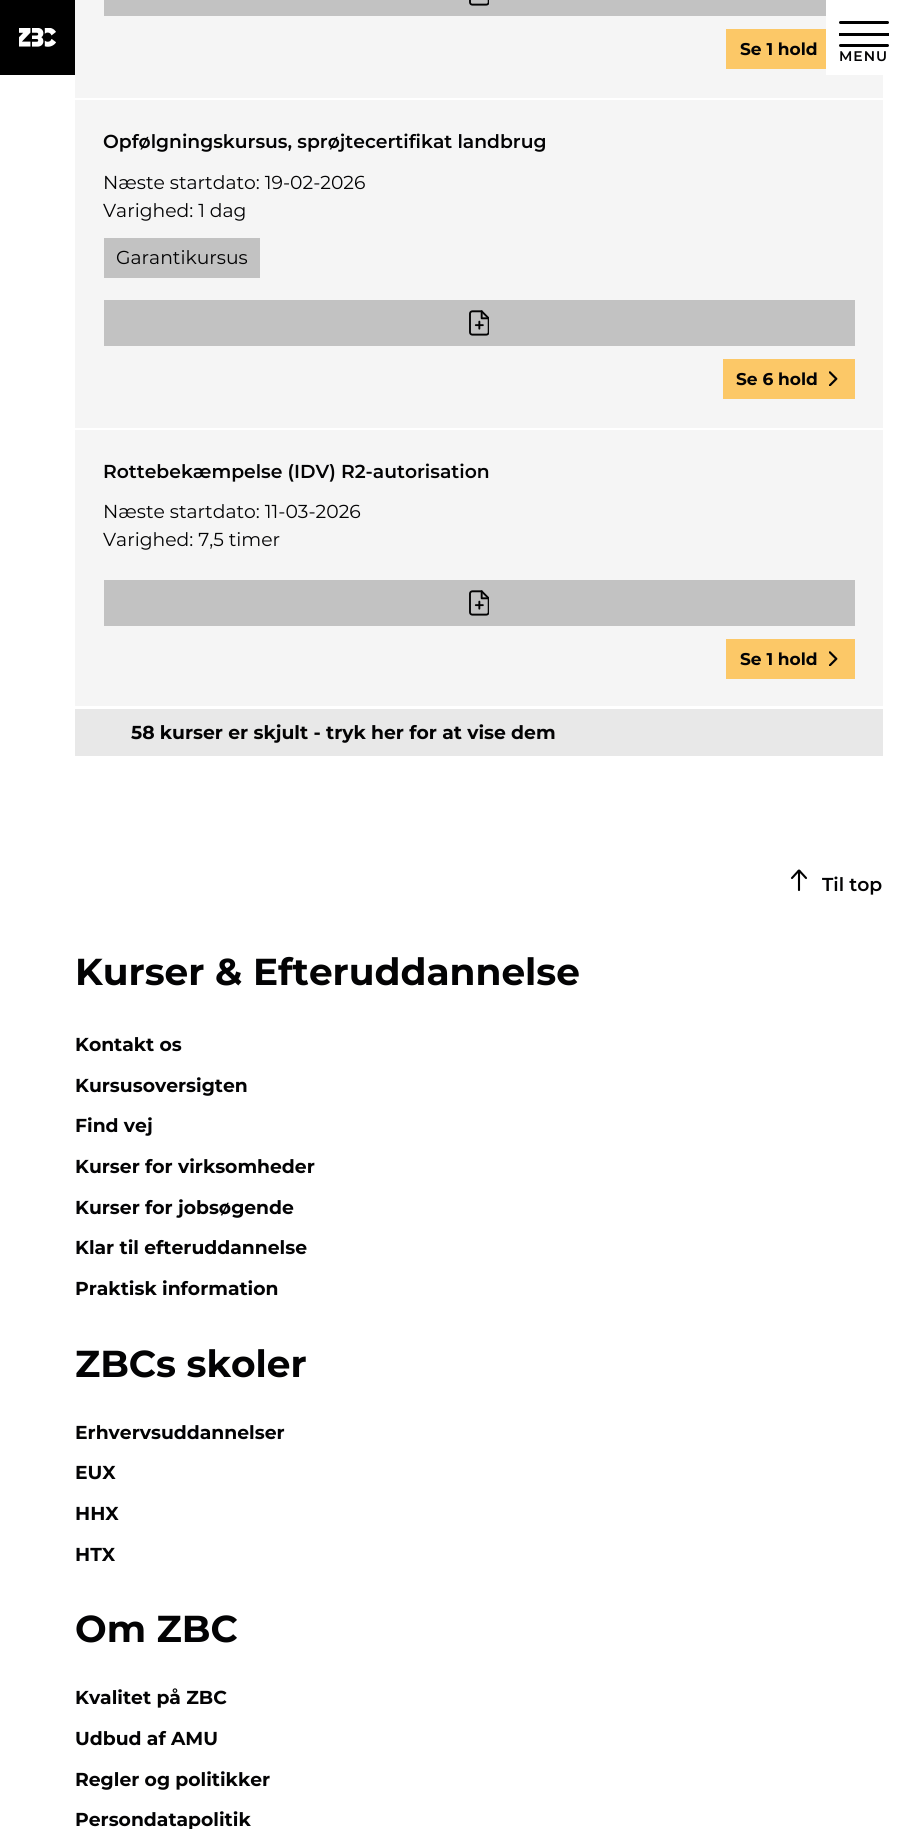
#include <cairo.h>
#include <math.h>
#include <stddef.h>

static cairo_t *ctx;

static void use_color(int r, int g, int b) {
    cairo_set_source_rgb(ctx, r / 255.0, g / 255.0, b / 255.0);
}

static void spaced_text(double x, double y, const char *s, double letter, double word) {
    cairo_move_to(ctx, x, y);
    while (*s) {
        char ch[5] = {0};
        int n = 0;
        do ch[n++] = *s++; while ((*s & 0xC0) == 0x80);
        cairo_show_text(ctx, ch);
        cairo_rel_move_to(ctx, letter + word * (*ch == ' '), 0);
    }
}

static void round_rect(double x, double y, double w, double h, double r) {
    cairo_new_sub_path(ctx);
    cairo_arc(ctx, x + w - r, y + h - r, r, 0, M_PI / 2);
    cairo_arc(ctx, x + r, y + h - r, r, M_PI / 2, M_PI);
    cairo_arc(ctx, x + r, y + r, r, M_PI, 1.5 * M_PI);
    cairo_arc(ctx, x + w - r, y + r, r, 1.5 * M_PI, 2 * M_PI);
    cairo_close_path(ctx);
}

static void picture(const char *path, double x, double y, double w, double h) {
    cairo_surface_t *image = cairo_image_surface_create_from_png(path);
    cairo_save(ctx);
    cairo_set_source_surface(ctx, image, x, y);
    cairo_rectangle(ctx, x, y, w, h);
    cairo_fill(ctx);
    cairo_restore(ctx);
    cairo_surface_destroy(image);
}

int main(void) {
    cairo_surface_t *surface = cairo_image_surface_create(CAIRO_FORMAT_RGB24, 901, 1829);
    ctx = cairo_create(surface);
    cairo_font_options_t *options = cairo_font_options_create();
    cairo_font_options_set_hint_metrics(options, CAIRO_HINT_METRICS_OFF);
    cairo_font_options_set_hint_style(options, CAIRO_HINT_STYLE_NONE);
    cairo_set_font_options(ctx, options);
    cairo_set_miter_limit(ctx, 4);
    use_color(255, 255, 255);
    cairo_paint(ctx);
    use_color(245, 245, 245);
    cairo_rectangle(ctx, 75, 0, 808, 98);
    cairo_fill(ctx);
    use_color(194, 194, 194);
    cairo_rectangle(ctx, 104, 0, 722, 16);
    cairo_fill(ctx);
    picture("img1.png", 469, 0, 20, 6);
    use_color(252, 200, 103);
    cairo_rectangle(ctx, 726, 29, 100, 40);
    cairo_fill(ctx);
    cairo_select_font_face(ctx, "Montserrat", CAIRO_FONT_SLANT_NORMAL, CAIRO_FONT_WEIGHT_BOLD);
    cairo_set_font_size(ctx, 17);
    use_color(3, 3, 4);
    cairo_move_to(ctx, 740, 55);
    cairo_show_text(ctx, "Se 1 hold");
    use_color(245, 245, 245);
    cairo_rectangle(ctx, 75, 100, 808, 328);
    cairo_fill(ctx);
    cairo_select_font_face(ctx, "Montserrat SemiBold", CAIRO_FONT_SLANT_NORMAL, CAIRO_FONT_WEIGHT_NORMAL);
    cairo_set_font_size(ctx, 18.75);
    use_color(3, 3, 4);
    cairo_move_to(ctx, 103, 148);
    cairo_show_text(ctx, "Opfølgningskursus, sprøjtecertifikat landbrug");
    cairo_select_font_face(ctx, "Montserrat", CAIRO_FONT_SLANT_NORMAL, CAIRO_FONT_WEIGHT_NORMAL);
    cairo_move_to(ctx, 103, 189);
    cairo_show_text(ctx, "Næste startdato: 19-02-2026");
    cairo_move_to(ctx, 103, 217);
    cairo_show_text(ctx, "Varighed: 1 dag");
    use_color(194, 194, 194);
    cairo_rectangle(ctx, 104, 238, 156, 40);
    cairo_fill(ctx);
    use_color(3, 3, 4);
    cairo_move_to(ctx, 116, 264);
    cairo_show_text(ctx, "Garantikursus");
    use_color(194, 194, 194);
    cairo_rectangle(ctx, 104, 300, 751, 46);
    cairo_fill(ctx);
    picture("img2.png", 469, 310, 20, 26);
    use_color(252, 200, 103);
    cairo_rectangle(ctx, 723, 359, 132, 40);
    cairo_fill(ctx);
    cairo_select_font_face(ctx, "Montserrat", CAIRO_FONT_SLANT_NORMAL, CAIRO_FONT_WEIGHT_BOLD);
    cairo_set_font_size(ctx, 17);
    use_color(3, 3, 4);
    cairo_move_to(ctx, 736, 385);
    cairo_show_text(ctx, "Se 6 hold");
    picture("img3.png", 829, 371, 9, 15);
    use_color(245, 245, 245);
    cairo_rectangle(ctx, 75, 430, 808, 276);
    cairo_fill(ctx);
    cairo_select_font_face(ctx, "Montserrat SemiBold", CAIRO_FONT_SLANT_NORMAL, CAIRO_FONT_WEIGHT_NORMAL);
    cairo_set_font_size(ctx, 18.75);
    use_color(3, 3, 4);
    cairo_move_to(ctx, 103, 478);
    cairo_show_text(ctx, "Rottebekæmpelse (IDV) R2-autorisation");
    cairo_select_font_face(ctx, "Montserrat", CAIRO_FONT_SLANT_NORMAL, CAIRO_FONT_WEIGHT_NORMAL);
    cairo_move_to(ctx, 103, 518);
    cairo_show_text(ctx, "Næste startdato: 11-03-2026");
    cairo_move_to(ctx, 103, 546);
    cairo_show_text(ctx, "Varighed: 7,5 timer");
    use_color(194, 194, 194);
    cairo_rectangle(ctx, 104, 580, 751, 46);
    cairo_fill(ctx);
    picture("img2.png", 469, 590, 20, 26);
    use_color(252, 200, 103);
    cairo_rectangle(ctx, 726, 639, 129, 40);
    cairo_fill(ctx);
    cairo_select_font_face(ctx, "Montserrat", CAIRO_FONT_SLANT_NORMAL, CAIRO_FONT_WEIGHT_BOLD);
    cairo_set_font_size(ctx, 17);
    use_color(3, 3, 4);
    cairo_move_to(ctx, 740, 665);
    cairo_show_text(ctx, "Se 1 hold");
    picture("img3.png", 829, 651, 9, 15);
    use_color(232, 232, 232);
    cairo_rectangle(ctx, 75, 709, 808, 47);
    cairo_fill(ctx);
    cairo_set_font_size(ctx, 18.75);
    use_color(3, 3, 4);
    cairo_move_to(ctx, 131, 739);
    cairo_show_text(ctx, "58 kurser er skjult - tryk her for at vise dem");
    use_color(0, 0, 0);
    cairo_rectangle(ctx, 0, 0, 75, 75);
    cairo_fill(ctx);
    picture("img4.png", 19, 28, 37, 19);
    use_color(255, 255, 255);
    cairo_rectangle(ctx, 826, 0, 57, 75);
    cairo_fill(ctx);
    use_color(0, 0, 0);
    round_rect(839, 21, 50, 3, 1.5);
    cairo_fill(ctx);
    cairo_rectangle(ctx, 839, 33, 50, 3);
    cairo_fill(ctx);
    round_rect(839, 44, 50, 3, 1.5);
    cairo_fill(ctx);
    cairo_select_font_face(ctx, "Montserrat SemiBold", CAIRO_FONT_SLANT_NORMAL, CAIRO_FONT_WEIGHT_NORMAL);
    cairo_set_font_size(ctx, 14);
    use_color(3, 3, 4);
    spaced_text(839, 61, "MENU", 1, 0);
    cairo_new_path(ctx);
    cairo_move_to(ctx, 799, 870.5);
    cairo_line_to(ctx, 799, 890);
    cairo_move_to(ctx, 806, 878);
    cairo_line_to(ctx, 800.5, 872);
    cairo_curve_to(ctx, 799, 870, 799, 870, 797.5, 872);
    cairo_line_to(ctx, 792, 878);
    use_color(0, 0, 0);
    cairo_set_line_width(ctx, 2.1);
    cairo_set_line_cap(ctx, CAIRO_LINE_CAP_ROUND);
    cairo_set_line_join(ctx, CAIRO_LINE_JOIN_ROUND);
    cairo_stroke(ctx);
    cairo_set_font_size(ctx, 18.75);
    use_color(3, 3, 4);
    cairo_move_to(ctx, 822, 891);
    cairo_show_text(ctx, "Til top");
    cairo_select_font_face(ctx, "Montserrat", CAIRO_FONT_SLANT_NORMAL, CAIRO_FONT_WEIGHT_BOLD);
    cairo_set_font_size(ctx, 37.5);
    cairo_move_to(ctx, 75, 985);
    cairo_show_text(ctx, "Kurser & Efteruddannelse");
    cairo_set_font_size(ctx, 18.75);
    cairo_move_to(ctx, 75, 1051);
    cairo_show_text(ctx, "Kontakt os");
    cairo_move_to(ctx, 75, 1092);
    cairo_show_text(ctx, "Kursusoversigten");
    cairo_move_to(ctx, 75, 1132);
    cairo_show_text(ctx, "Find vej");
    cairo_move_to(ctx, 75, 1173);
    cairo_show_text(ctx, "Kurser for virksomheder");
    cairo_move_to(ctx, 75, 1214);
    cairo_show_text(ctx, "Kurser for jobsøgende");
    cairo_move_to(ctx, 75, 1254);
    cairo_show_text(ctx, "Klar til efteruddannelse");
    cairo_move_to(ctx, 75, 1295);
    cairo_show_text(ctx, "Praktisk information");
    cairo_set_font_size(ctx, 37.5);
    cairo_move_to(ctx, 75, 1377);
    cairo_show_text(ctx, "ZBCs skoler");
    cairo_set_font_size(ctx, 18.75);
    cairo_move_to(ctx, 75, 1439);
    cairo_show_text(ctx, "Erhvervsuddannelser");
    cairo_move_to(ctx, 75, 1479);
    cairo_show_text(ctx, "EUX");
    cairo_move_to(ctx, 75, 1520);
    cairo_show_text(ctx, "HHX");
    cairo_move_to(ctx, 75, 1561);
    cairo_show_text(ctx, "HTX");
    cairo_set_font_size(ctx, 37.5);
    cairo_move_to(ctx, 75, 1642);
    cairo_show_text(ctx, "Om ZBC");
    cairo_set_font_size(ctx, 18.75);
    cairo_move_to(ctx, 75, 1704);
    cairo_show_text(ctx, "Kvalitet på ZBC");
    cairo_move_to(ctx, 75, 1745);
    cairo_show_text(ctx, "Udbud af AMU");
    cairo_move_to(ctx, 75, 1786);
    cairo_show_text(ctx, "Regler og politikker");
    cairo_move_to(ctx, 75, 1826);
    cairo_show_text(ctx, "Persondatapolitik");
    cairo_surface_write_to_png(surface, "result.png");
    cairo_font_options_destroy(options);
    cairo_destroy(ctx);
    cairo_surface_destroy(surface);
    return 0;
}
